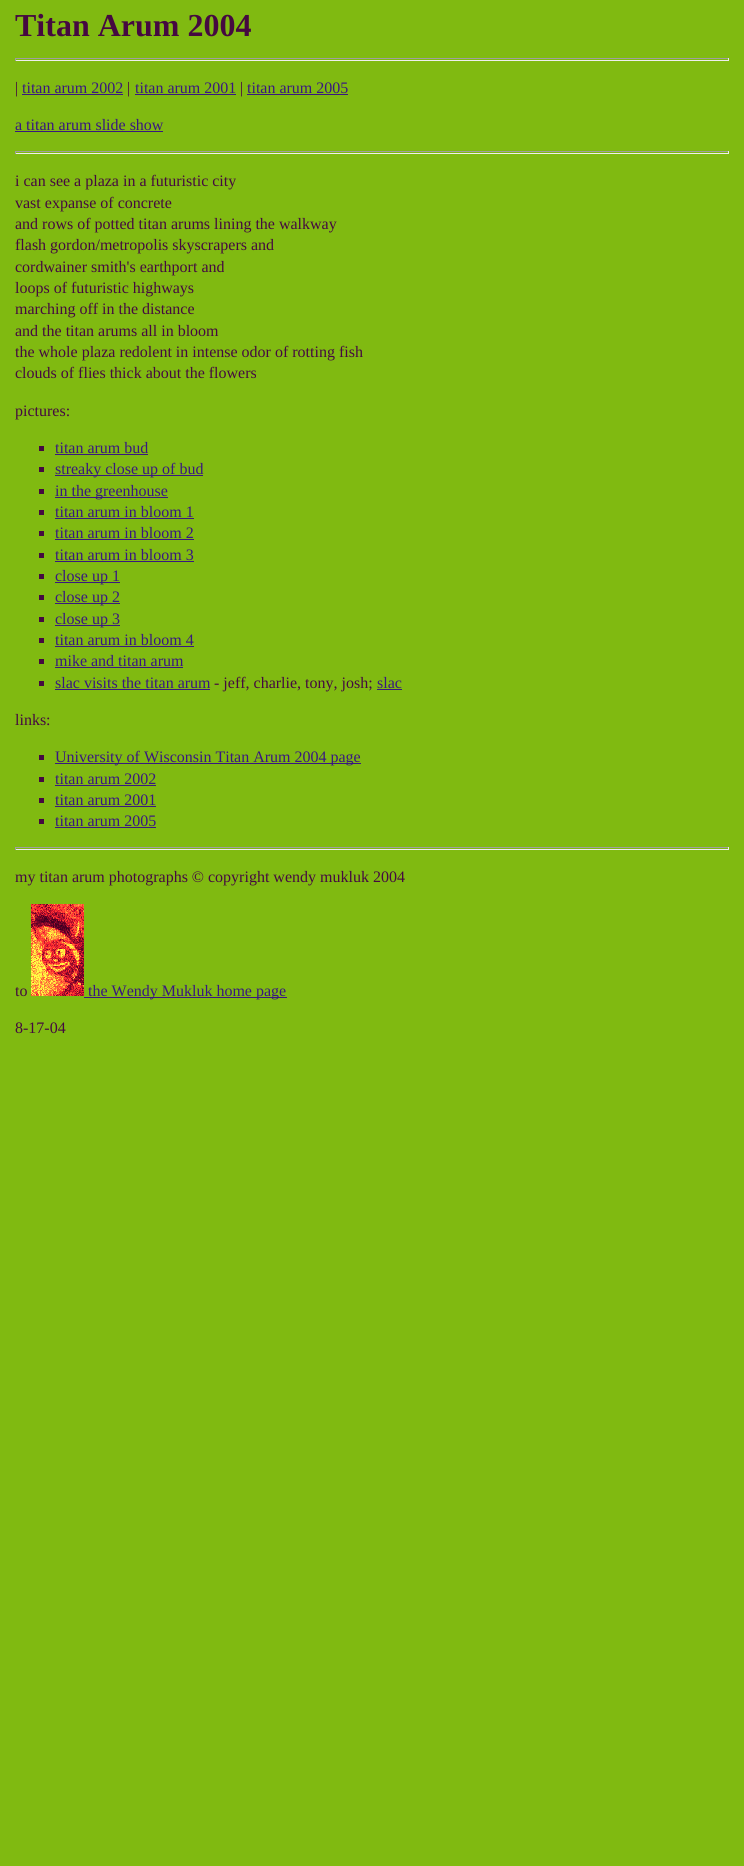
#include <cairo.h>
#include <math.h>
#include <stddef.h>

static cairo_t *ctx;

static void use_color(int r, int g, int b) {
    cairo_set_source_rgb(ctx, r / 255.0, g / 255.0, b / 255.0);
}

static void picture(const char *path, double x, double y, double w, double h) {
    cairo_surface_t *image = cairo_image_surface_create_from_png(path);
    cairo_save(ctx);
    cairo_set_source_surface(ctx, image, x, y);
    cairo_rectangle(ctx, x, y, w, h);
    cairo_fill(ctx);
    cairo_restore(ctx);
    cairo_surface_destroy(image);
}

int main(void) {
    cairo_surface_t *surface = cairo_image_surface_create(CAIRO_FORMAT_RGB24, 744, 1866);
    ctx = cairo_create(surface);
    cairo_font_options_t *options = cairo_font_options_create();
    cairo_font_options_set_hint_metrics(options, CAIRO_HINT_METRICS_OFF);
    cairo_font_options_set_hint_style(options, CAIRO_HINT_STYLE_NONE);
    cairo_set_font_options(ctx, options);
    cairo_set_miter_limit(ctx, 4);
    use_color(128, 186, 17);
    cairo_paint(ctx);
    cairo_select_font_face(ctx, "Liberation Serif", CAIRO_FONT_SLANT_NORMAL, CAIRO_FONT_WEIGHT_BOLD);
    cairo_set_font_size(ctx, 32);
    use_color(69, 9, 64);
    cairo_move_to(ctx, 15, 36);
    cairo_show_text(ctx, "Titan Arum 2004");
    use_color(159, 159, 159);
    cairo_rectangle(ctx, 15, 58, 714, 1);
    cairo_fill(ctx);
    use_color(238, 238, 238);
    cairo_rectangle(ctx, 728, 58, 1, 3);
    cairo_fill(ctx);
    cairo_rectangle(ctx, 15, 60, 714, 1);
    cairo_fill(ctx);
    use_color(159, 159, 159);
    cairo_rectangle(ctx, 15, 58, 1, 3);
    cairo_fill(ctx);
    cairo_select_font_face(ctx, "Liberation Serif", CAIRO_FONT_SLANT_NORMAL, CAIRO_FONT_WEIGHT_NORMAL);
    cairo_set_font_size(ctx, 16);
    use_color(69, 9, 64);
    cairo_move_to(ctx, 15, 93);
    cairo_show_text(ctx, "|");
    use_color(57, 23, 128);
    cairo_move_to(ctx, 22, 93);
    cairo_show_text(ctx, "titan arum 2002");
    cairo_rectangle(ctx, 22, 94, 101, 1);
    cairo_fill(ctx);
    use_color(69, 9, 64);
    cairo_move_to(ctx, 127, 93);
    cairo_show_text(ctx, "|");
    use_color(57, 23, 128);
    cairo_move_to(ctx, 135, 93);
    cairo_show_text(ctx, "titan arum 2001");
    cairo_rectangle(ctx, 135, 94, 101, 1);
    cairo_fill(ctx);
    use_color(69, 9, 64);
    cairo_move_to(ctx, 240, 93);
    cairo_show_text(ctx, "|");
    use_color(57, 23, 128);
    cairo_move_to(ctx, 247, 93);
    cairo_show_text(ctx, "titan arum 2005");
    cairo_rectangle(ctx, 247, 94, 101, 1);
    cairo_fill(ctx);
    cairo_move_to(ctx, 15, 130);
    cairo_show_text(ctx, "a titan arum slide show");
    cairo_rectangle(ctx, 15, 131, 148, 1);
    cairo_fill(ctx);
    use_color(159, 159, 159);
    cairo_rectangle(ctx, 15, 151, 714, 1);
    cairo_fill(ctx);
    use_color(238, 238, 238);
    cairo_rectangle(ctx, 728, 151, 1, 3);
    cairo_fill(ctx);
    cairo_rectangle(ctx, 15, 153, 714, 1);
    cairo_fill(ctx);
    use_color(159, 159, 159);
    cairo_rectangle(ctx, 15, 151, 1, 3);
    cairo_fill(ctx);
    use_color(69, 9, 64);
    cairo_move_to(ctx, 15, 186);
    cairo_show_text(ctx, "i can see a plaza in a futuristic city");
    cairo_move_to(ctx, 15, 208);
    cairo_show_text(ctx, "vast expanse of concrete");
    cairo_move_to(ctx, 15, 229);
    cairo_show_text(ctx, "and rows of potted titan arums lining the walkway");
    cairo_move_to(ctx, 15, 250);
    cairo_show_text(ctx, "flash gordon/metropolis skyscrapers and");
    cairo_move_to(ctx, 15, 272);
    cairo_show_text(ctx, "cordwainer smith's earthport and");
    cairo_move_to(ctx, 15, 293);
    cairo_show_text(ctx, "loops of futuristic highways");
    cairo_move_to(ctx, 15, 314);
    cairo_show_text(ctx, "marching off in the distance");
    cairo_move_to(ctx, 15, 336);
    cairo_show_text(ctx, "and the titan arums all in bloom");
    cairo_move_to(ctx, 15, 357);
    cairo_show_text(ctx, "the whole plaza redolent in intense odor of rotting fish");
    cairo_move_to(ctx, 15, 378);
    cairo_show_text(ctx, "clouds of flies thick about the flowers");
    cairo_move_to(ctx, 15, 416);
    cairo_show_text(ctx, "pictures:");
    cairo_rectangle(ctx, 39, 446, 5, 5);
    cairo_fill(ctx);
    use_color(57, 23, 128);
    cairo_move_to(ctx, 55, 453);
    cairo_show_text(ctx, "titan arum bud");
    cairo_rectangle(ctx, 55, 454, 93, 1);
    cairo_fill(ctx);
    use_color(69, 9, 64);
    cairo_rectangle(ctx, 39, 467, 5, 5);
    cairo_fill(ctx);
    use_color(57, 23, 128);
    cairo_rectangle(ctx, 55, 475, 148, 1);
    cairo_fill(ctx);
    cairo_move_to(ctx, 55, 474);
    cairo_show_text(ctx, "streaky close up of bud");
    use_color(69, 9, 64);
    cairo_rectangle(ctx, 39, 489, 5, 5);
    cairo_fill(ctx);
    use_color(57, 23, 128);
    cairo_rectangle(ctx, 55, 497, 113, 1);
    cairo_fill(ctx);
    cairo_move_to(ctx, 55, 496);
    cairo_show_text(ctx, "in the greenhouse");
    use_color(69, 9, 64);
    cairo_rectangle(ctx, 39, 510, 5, 5);
    cairo_fill(ctx);
    use_color(57, 23, 128);
    cairo_move_to(ctx, 55, 517);
    cairo_show_text(ctx, "titan arum in bloom 1");
    cairo_rectangle(ctx, 55, 518, 139, 1);
    cairo_fill(ctx);
    use_color(69, 9, 64);
    cairo_rectangle(ctx, 39, 531, 5, 5);
    cairo_fill(ctx);
    use_color(57, 23, 128);
    cairo_move_to(ctx, 55, 538);
    cairo_show_text(ctx, "titan arum in bloom 2");
    cairo_rectangle(ctx, 55, 539, 139, 1);
    cairo_fill(ctx);
    use_color(69, 9, 64);
    cairo_rectangle(ctx, 39, 553, 5, 5);
    cairo_fill(ctx);
    use_color(57, 23, 128);
    cairo_move_to(ctx, 55, 560);
    cairo_show_text(ctx, "titan arum in bloom 3");
    cairo_rectangle(ctx, 55, 561, 139, 1);
    cairo_fill(ctx);
    use_color(69, 9, 64);
    cairo_rectangle(ctx, 39, 574, 5, 5);
    cairo_fill(ctx);
    use_color(57, 23, 128);
    cairo_rectangle(ctx, 55, 582, 65, 1);
    cairo_fill(ctx);
    cairo_move_to(ctx, 55, 581);
    cairo_show_text(ctx, "close up 1");
    use_color(69, 9, 64);
    cairo_rectangle(ctx, 39, 595, 5, 5);
    cairo_fill(ctx);
    use_color(57, 23, 128);
    cairo_rectangle(ctx, 55, 603, 65, 1);
    cairo_fill(ctx);
    cairo_move_to(ctx, 55, 602);
    cairo_show_text(ctx, "close up 2");
    use_color(69, 9, 64);
    cairo_rectangle(ctx, 39, 617, 5, 5);
    cairo_fill(ctx);
    use_color(57, 23, 128);
    cairo_rectangle(ctx, 55, 625, 65, 1);
    cairo_fill(ctx);
    cairo_move_to(ctx, 55, 624);
    cairo_show_text(ctx, "close up 3");
    use_color(69, 9, 64);
    cairo_rectangle(ctx, 39, 638, 5, 5);
    cairo_fill(ctx);
    use_color(57, 23, 128);
    cairo_move_to(ctx, 55, 645);
    cairo_show_text(ctx, "titan arum in bloom 4");
    cairo_rectangle(ctx, 55, 646, 139, 1);
    cairo_fill(ctx);
    use_color(69, 9, 64);
    cairo_rectangle(ctx, 39, 659, 5, 5);
    cairo_fill(ctx);
    use_color(57, 23, 128);
    cairo_move_to(ctx, 55, 666);
    cairo_show_text(ctx, "mike and titan arum");
    cairo_rectangle(ctx, 55, 667, 128, 1);
    cairo_fill(ctx);
    use_color(69, 9, 64);
    cairo_rectangle(ctx, 39, 681, 5, 5);
    cairo_fill(ctx);
    use_color(57, 23, 128);
    cairo_move_to(ctx, 55, 688);
    cairo_show_text(ctx, "slac visits the titan arum");
    cairo_rectangle(ctx, 55, 689, 155, 1);
    cairo_fill(ctx);
    use_color(69, 9, 64);
    cairo_move_to(ctx, 214, 688);
    cairo_show_text(ctx, "- jeff, charlie, tony, josh;");
    use_color(57, 23, 128);
    cairo_move_to(ctx, 377, 688);
    cairo_show_text(ctx, "slac");
    cairo_rectangle(ctx, 377, 689, 25, 1);
    cairo_fill(ctx);
    use_color(69, 9, 64);
    cairo_move_to(ctx, 15, 725);
    cairo_show_text(ctx, "links:");
    cairo_rectangle(ctx, 39, 755, 5, 5);
    cairo_fill(ctx);
    use_color(57, 23, 128);
    cairo_rectangle(ctx, 55, 763, 306, 1);
    cairo_fill(ctx);
    cairo_move_to(ctx, 55, 762);
    cairo_show_text(ctx, "University of Wisconsin Titan Arum 2004 page");
    use_color(69, 9, 64);
    cairo_rectangle(ctx, 39, 777, 5, 5);
    cairo_fill(ctx);
    use_color(57, 23, 128);
    cairo_move_to(ctx, 55, 784);
    cairo_show_text(ctx, "titan arum 2002");
    cairo_rectangle(ctx, 55, 785, 101, 1);
    cairo_fill(ctx);
    use_color(69, 9, 64);
    cairo_rectangle(ctx, 39, 798, 5, 5);
    cairo_fill(ctx);
    use_color(57, 23, 128);
    cairo_move_to(ctx, 55, 805);
    cairo_show_text(ctx, "titan arum 2001");
    cairo_rectangle(ctx, 55, 806, 101, 1);
    cairo_fill(ctx);
    use_color(69, 9, 64);
    cairo_rectangle(ctx, 39, 819, 5, 5);
    cairo_fill(ctx);
    use_color(57, 23, 128);
    cairo_move_to(ctx, 55, 826);
    cairo_show_text(ctx, "titan arum 2005");
    cairo_rectangle(ctx, 55, 827, 101, 1);
    cairo_fill(ctx);
    use_color(159, 159, 159);
    cairo_rectangle(ctx, 15, 847, 714, 1);
    cairo_fill(ctx);
    use_color(238, 238, 238);
    cairo_rectangle(ctx, 728, 847, 1, 3);
    cairo_fill(ctx);
    cairo_rectangle(ctx, 15, 849, 714, 1);
    cairo_fill(ctx);
    use_color(159, 159, 159);
    cairo_rectangle(ctx, 15, 847, 1, 3);
    cairo_fill(ctx);
    use_color(69, 9, 64);
    cairo_move_to(ctx, 15, 882);
    cairo_show_text(ctx, "my titan arum photographs © copyright wendy mukluk 2004");
    cairo_move_to(ctx, 15, 996);
    cairo_show_text(ctx, "to");
    picture("img1.png", 31, 904, 53, 92);
    use_color(57, 23, 128);
    cairo_rectangle(ctx, 84, 997, 203, 1);
    cairo_fill(ctx);
    cairo_move_to(ctx, 88, 996);
    cairo_show_text(ctx, "the Wendy Mukluk home page");
    use_color(69, 9, 64);
    cairo_move_to(ctx, 15, 1033);
    cairo_show_text(ctx, "8-17-04");
    cairo_surface_write_to_png(surface, "result.png");
    cairo_font_options_destroy(options);
    cairo_destroy(ctx);
    cairo_surface_destroy(surface);
    return 0;
}
